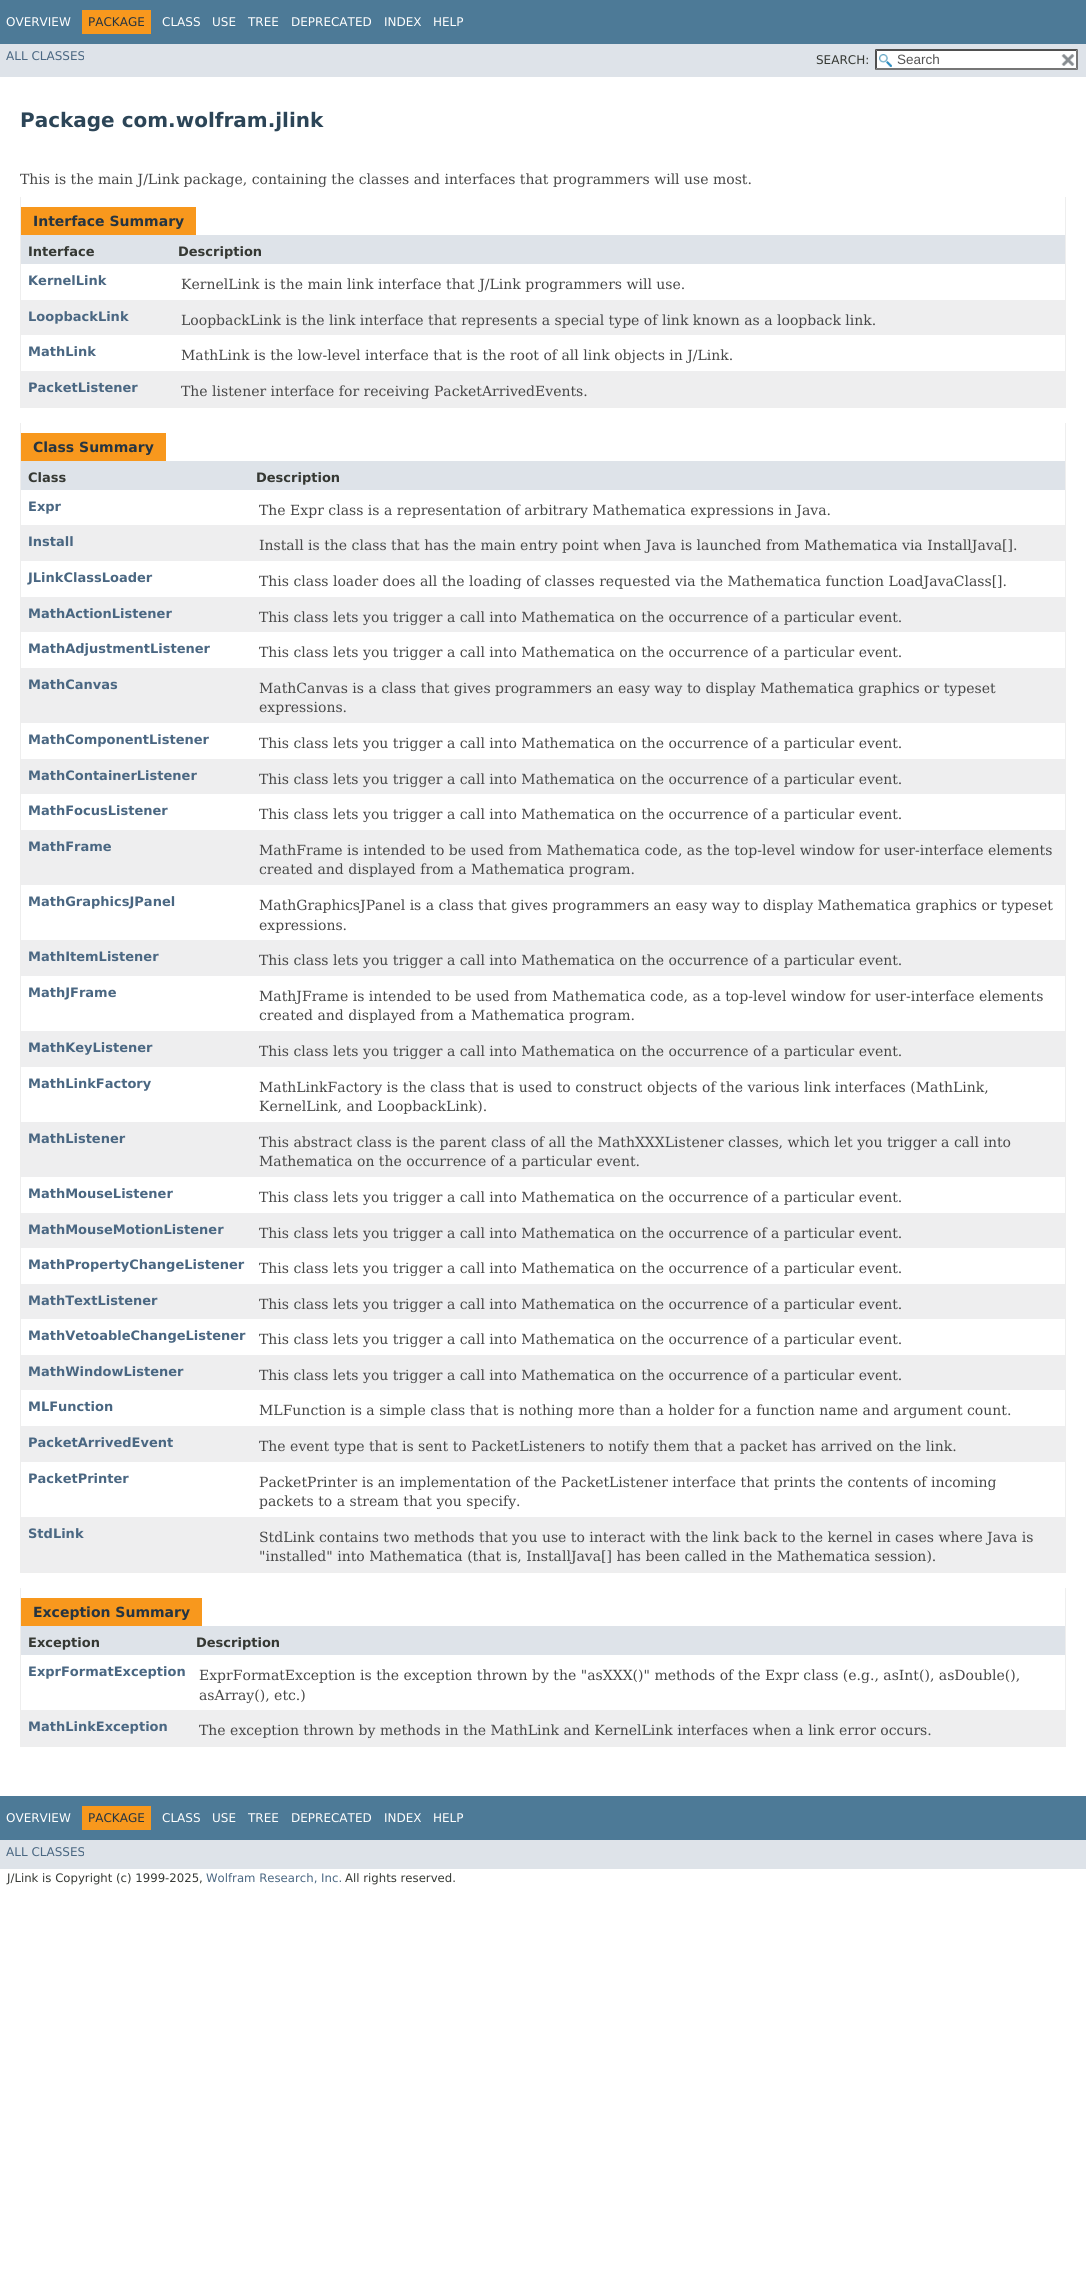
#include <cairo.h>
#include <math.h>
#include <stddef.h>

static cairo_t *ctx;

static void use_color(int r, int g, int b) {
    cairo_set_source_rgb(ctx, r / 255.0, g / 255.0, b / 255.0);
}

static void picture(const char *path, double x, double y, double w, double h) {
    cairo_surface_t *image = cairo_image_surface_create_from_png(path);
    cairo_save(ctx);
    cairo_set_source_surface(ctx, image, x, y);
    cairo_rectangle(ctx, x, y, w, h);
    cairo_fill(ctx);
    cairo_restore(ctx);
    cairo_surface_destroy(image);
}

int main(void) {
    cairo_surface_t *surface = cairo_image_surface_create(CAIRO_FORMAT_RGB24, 1086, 2272);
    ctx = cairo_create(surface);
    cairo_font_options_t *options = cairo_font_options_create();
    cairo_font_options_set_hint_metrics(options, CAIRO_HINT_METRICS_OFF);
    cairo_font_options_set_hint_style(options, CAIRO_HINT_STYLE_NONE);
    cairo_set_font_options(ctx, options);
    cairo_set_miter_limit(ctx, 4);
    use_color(255, 255, 255);
    cairo_paint(ctx);
    use_color(77, 122, 151);
    cairo_rectangle(ctx, 0, 0, 1086, 44);
    cairo_fill(ctx);
    cairo_select_font_face(ctx, "DejaVu Sans", CAIRO_FONT_SLANT_NORMAL, CAIRO_FONT_WEIGHT_NORMAL);
    cairo_set_font_size(ctx, 12);
    use_color(255, 255, 255);
    cairo_move_to(ctx, 6, 26);
    cairo_show_text(ctx, "OVERVIEW");
    use_color(248, 152, 29);
    cairo_rectangle(ctx, 82, 10, 69, 24);
    cairo_fill(ctx);
    use_color(37, 52, 65);
    cairo_move_to(ctx, 88, 26);
    cairo_show_text(ctx, "PACKAGE");
    use_color(255, 255, 255);
    cairo_move_to(ctx, 162, 26);
    cairo_show_text(ctx, "CLASS");
    cairo_move_to(ctx, 212, 26);
    cairo_show_text(ctx, "USE");
    cairo_move_to(ctx, 248, 26);
    cairo_show_text(ctx, "TREE");
    cairo_move_to(ctx, 291, 26);
    cairo_show_text(ctx, "DEPRECATED");
    cairo_move_to(ctx, 384, 26);
    cairo_show_text(ctx, "INDEX");
    cairo_move_to(ctx, 433, 26);
    cairo_show_text(ctx, "HELP");
    use_color(222, 227, 233);
    cairo_rectangle(ctx, 0, 44, 1086, 33);
    cairo_fill(ctx);
    use_color(74, 103, 130);
    cairo_move_to(ctx, 6, 60);
    cairo_show_text(ctx, "ALL CLASSES");
    use_color(53, 56, 51);
    cairo_move_to(ctx, 816, 64);
    cairo_show_text(ctx, "SEARCH:");
    use_color(255, 255, 255);
    cairo_rectangle(ctx, 875, 49, 203, 21);
    cairo_fill(ctx);
    picture("img1.png", 879, 54, 13, 13);
    use_color(79, 79, 79);
    cairo_new_path(ctx);
    cairo_move_to(ctx, 875, 49);
    cairo_line_to(ctx, 1078, 49);
    cairo_line_to(ctx, 1076, 51);
    cairo_line_to(ctx, 877, 51);
    cairo_close_path(ctx);
    cairo_fill(ctx);
    use_color(118, 118, 118);
    cairo_new_path(ctx);
    cairo_move_to(ctx, 1078, 49);
    cairo_line_to(ctx, 1078, 70);
    cairo_line_to(ctx, 1076, 68);
    cairo_line_to(ctx, 1076, 51);
    cairo_close_path(ctx);
    cairo_fill(ctx);
    cairo_new_path(ctx);
    cairo_move_to(ctx, 1078, 70);
    cairo_line_to(ctx, 875, 70);
    cairo_line_to(ctx, 877, 68);
    cairo_line_to(ctx, 1076, 68);
    cairo_close_path(ctx);
    cairo_fill(ctx);
    use_color(79, 79, 79);
    cairo_new_path(ctx);
    cairo_move_to(ctx, 875, 70);
    cairo_line_to(ctx, 875, 49);
    cairo_line_to(ctx, 877, 51);
    cairo_line_to(ctx, 877, 68);
    cairo_close_path(ctx);
    cairo_fill(ctx);
    cairo_select_font_face(ctx, "Liberation Sans", CAIRO_FONT_SLANT_NORMAL, CAIRO_FONT_WEIGHT_NORMAL);
    cairo_set_font_size(ctx, 13.5);
    use_color(84, 84, 84);
    cairo_move_to(ctx, 897, 64);
    cairo_show_text(ctx, "Search");
    picture("img2.png", 1061, 54, 14, 12);
    cairo_select_font_face(ctx, "DejaVu Sans", CAIRO_FONT_SLANT_NORMAL, CAIRO_FONT_WEIGHT_BOLD);
    cairo_set_font_size(ctx, 20);
    use_color(44, 69, 87);
    cairo_move_to(ctx, 20, 127);
    cairo_show_text(ctx, "Package com.wolfram.jlink");
    cairo_select_font_face(ctx, "DejaVu Serif", CAIRO_FONT_SLANT_NORMAL, CAIRO_FONT_WEIGHT_NORMAL);
    cairo_set_font_size(ctx, 14);
    use_color(71, 71, 71);
    cairo_move_to(ctx, 20, 184);
    cairo_show_text(ctx, "This is the main J/Link package, containing the classes and interfaces that programmers will use most.");
    use_color(238, 238, 238);
    cairo_rectangle(ctx, 1065, 197, 1, 211);
    cairo_fill(ctx);
    cairo_rectangle(ctx, 20, 407, 1046, 1);
    cairo_fill(ctx);
    cairo_rectangle(ctx, 20, 197, 1, 211);
    cairo_fill(ctx);
    use_color(248, 152, 29);
    cairo_rectangle(ctx, 21, 207, 175, 28);
    cairo_fill(ctx);
    cairo_select_font_face(ctx, "DejaVu Sans", CAIRO_FONT_SLANT_NORMAL, CAIRO_FONT_WEIGHT_BOLD);
    use_color(37, 52, 65);
    cairo_move_to(ctx, 33, 226);
    cairo_show_text(ctx, "Interface Summary");
    use_color(222, 227, 233);
    cairo_rectangle(ctx, 21, 235, 1044, 29);
    cairo_fill(ctx);
    cairo_set_font_size(ctx, 13);
    use_color(53, 56, 51);
    cairo_move_to(ctx, 28, 256);
    cairo_show_text(ctx, "Interface");
    cairo_move_to(ctx, 178, 256);
    cairo_show_text(ctx, "Description");
    use_color(74, 103, 130);
    cairo_move_to(ctx, 28, 285);
    cairo_show_text(ctx, "KernelLink");
    cairo_select_font_face(ctx, "DejaVu Serif", CAIRO_FONT_SLANT_NORMAL, CAIRO_FONT_WEIGHT_NORMAL);
    cairo_set_font_size(ctx, 14);
    use_color(71, 71, 71);
    cairo_move_to(ctx, 181, 289);
    cairo_show_text(ctx, "KernelLink is the main link interface that J/Link programmers will use.");
    use_color(238, 238, 239);
    cairo_rectangle(ctx, 21, 300, 1044, 35);
    cairo_fill(ctx);
    cairo_select_font_face(ctx, "DejaVu Sans", CAIRO_FONT_SLANT_NORMAL, CAIRO_FONT_WEIGHT_BOLD);
    cairo_set_font_size(ctx, 13);
    use_color(74, 103, 130);
    cairo_move_to(ctx, 28, 321);
    cairo_show_text(ctx, "LoopbackLink");
    cairo_select_font_face(ctx, "DejaVu Serif", CAIRO_FONT_SLANT_NORMAL, CAIRO_FONT_WEIGHT_NORMAL);
    cairo_set_font_size(ctx, 14);
    use_color(71, 71, 71);
    cairo_move_to(ctx, 181, 325);
    cairo_show_text(ctx, "LoopbackLink is the link interface that represents a special type of link known as a loopback link.");
    cairo_select_font_face(ctx, "DejaVu Sans", CAIRO_FONT_SLANT_NORMAL, CAIRO_FONT_WEIGHT_BOLD);
    cairo_set_font_size(ctx, 13);
    use_color(74, 103, 130);
    cairo_move_to(ctx, 28, 356);
    cairo_show_text(ctx, "MathLink");
    cairo_select_font_face(ctx, "DejaVu Serif", CAIRO_FONT_SLANT_NORMAL, CAIRO_FONT_WEIGHT_NORMAL);
    cairo_set_font_size(ctx, 14);
    use_color(71, 71, 71);
    cairo_move_to(ctx, 181, 360);
    cairo_show_text(ctx, "MathLink is the low-level interface that is the root of all link objects in J/Link.");
    use_color(238, 238, 239);
    cairo_rectangle(ctx, 21, 371, 1044, 36);
    cairo_fill(ctx);
    cairo_select_font_face(ctx, "DejaVu Sans", CAIRO_FONT_SLANT_NORMAL, CAIRO_FONT_WEIGHT_BOLD);
    cairo_set_font_size(ctx, 13);
    use_color(74, 103, 130);
    cairo_move_to(ctx, 28, 392);
    cairo_show_text(ctx, "PacketListener");
    cairo_select_font_face(ctx, "DejaVu Serif", CAIRO_FONT_SLANT_NORMAL, CAIRO_FONT_WEIGHT_NORMAL);
    cairo_set_font_size(ctx, 14);
    use_color(71, 71, 71);
    cairo_move_to(ctx, 181, 396);
    cairo_show_text(ctx, "The listener interface for receiving PacketArrivedEvents.");
    use_color(238, 238, 238);
    cairo_rectangle(ctx, 1065, 423, 1, 1150);
    cairo_fill(ctx);
    cairo_rectangle(ctx, 20, 1572, 1046, 1);
    cairo_fill(ctx);
    cairo_rectangle(ctx, 20, 423, 1, 1150);
    cairo_fill(ctx);
    use_color(248, 152, 29);
    cairo_rectangle(ctx, 21, 433, 145, 28);
    cairo_fill(ctx);
    cairo_select_font_face(ctx, "DejaVu Sans", CAIRO_FONT_SLANT_NORMAL, CAIRO_FONT_WEIGHT_BOLD);
    use_color(37, 52, 65);
    cairo_move_to(ctx, 33, 452);
    cairo_show_text(ctx, "Class Summary");
    use_color(222, 227, 233);
    cairo_rectangle(ctx, 21, 461, 1044, 29);
    cairo_fill(ctx);
    cairo_set_font_size(ctx, 13);
    use_color(53, 56, 51);
    cairo_move_to(ctx, 28, 482);
    cairo_show_text(ctx, "Class");
    cairo_move_to(ctx, 256, 482);
    cairo_show_text(ctx, "Description");
    use_color(74, 103, 130);
    cairo_move_to(ctx, 28, 511);
    cairo_show_text(ctx, "Expr");
    cairo_select_font_face(ctx, "DejaVu Serif", CAIRO_FONT_SLANT_NORMAL, CAIRO_FONT_WEIGHT_NORMAL);
    cairo_set_font_size(ctx, 14);
    use_color(71, 71, 71);
    cairo_move_to(ctx, 259, 515);
    cairo_show_text(ctx, "The Expr class is a representation of arbitrary Mathematica expressions in Java.");
    use_color(238, 238, 239);
    cairo_rectangle(ctx, 21, 525, 1044, 36);
    cairo_fill(ctx);
    cairo_select_font_face(ctx, "DejaVu Sans", CAIRO_FONT_SLANT_NORMAL, CAIRO_FONT_WEIGHT_BOLD);
    cairo_set_font_size(ctx, 13);
    use_color(74, 103, 130);
    cairo_move_to(ctx, 28, 546);
    cairo_show_text(ctx, "Install");
    cairo_select_font_face(ctx, "DejaVu Serif", CAIRO_FONT_SLANT_NORMAL, CAIRO_FONT_WEIGHT_NORMAL);
    cairo_set_font_size(ctx, 14);
    use_color(71, 71, 71);
    cairo_move_to(ctx, 259, 550);
    cairo_show_text(ctx, "Install is the class that has the main entry point when Java is launched from Mathematica via InstallJava[].");
    cairo_select_font_face(ctx, "DejaVu Sans", CAIRO_FONT_SLANT_NORMAL, CAIRO_FONT_WEIGHT_BOLD);
    cairo_set_font_size(ctx, 13);
    use_color(74, 103, 130);
    cairo_move_to(ctx, 28, 582);
    cairo_show_text(ctx, "JLinkClassLoader");
    cairo_select_font_face(ctx, "DejaVu Serif", CAIRO_FONT_SLANT_NORMAL, CAIRO_FONT_WEIGHT_NORMAL);
    cairo_set_font_size(ctx, 14);
    use_color(71, 71, 71);
    cairo_move_to(ctx, 259, 586);
    cairo_show_text(ctx, "This class loader does all the loading of classes requested via the Mathematica function LoadJavaClass[].");
    use_color(238, 238, 239);
    cairo_rectangle(ctx, 21, 597, 1044, 35);
    cairo_fill(ctx);
    cairo_select_font_face(ctx, "DejaVu Sans", CAIRO_FONT_SLANT_NORMAL, CAIRO_FONT_WEIGHT_BOLD);
    cairo_set_font_size(ctx, 13);
    use_color(74, 103, 130);
    cairo_move_to(ctx, 28, 618);
    cairo_show_text(ctx, "MathActionListener");
    cairo_select_font_face(ctx, "DejaVu Serif", CAIRO_FONT_SLANT_NORMAL, CAIRO_FONT_WEIGHT_NORMAL);
    cairo_set_font_size(ctx, 14);
    use_color(71, 71, 71);
    cairo_move_to(ctx, 259, 622);
    cairo_show_text(ctx, "This class lets you trigger a call into Mathematica on the occurrence of a particular event.");
    cairo_select_font_face(ctx, "DejaVu Sans", CAIRO_FONT_SLANT_NORMAL, CAIRO_FONT_WEIGHT_BOLD);
    cairo_set_font_size(ctx, 13);
    use_color(74, 103, 130);
    cairo_move_to(ctx, 28, 653);
    cairo_show_text(ctx, "MathAdjustmentListener");
    cairo_select_font_face(ctx, "DejaVu Serif", CAIRO_FONT_SLANT_NORMAL, CAIRO_FONT_WEIGHT_NORMAL);
    cairo_set_font_size(ctx, 14);
    use_color(71, 71, 71);
    cairo_move_to(ctx, 259, 657);
    cairo_show_text(ctx, "This class lets you trigger a call into Mathematica on the occurrence of a particular event.");
    use_color(238, 238, 239);
    cairo_rectangle(ctx, 21, 668, 1044, 55);
    cairo_fill(ctx);
    cairo_select_font_face(ctx, "DejaVu Sans", CAIRO_FONT_SLANT_NORMAL, CAIRO_FONT_WEIGHT_BOLD);
    cairo_set_font_size(ctx, 13);
    use_color(74, 103, 130);
    cairo_move_to(ctx, 28, 689);
    cairo_show_text(ctx, "MathCanvas");
    cairo_select_font_face(ctx, "DejaVu Serif", CAIRO_FONT_SLANT_NORMAL, CAIRO_FONT_WEIGHT_NORMAL);
    cairo_set_font_size(ctx, 14);
    use_color(71, 71, 71);
    cairo_move_to(ctx, 259, 693);
    cairo_show_text(ctx, "MathCanvas is a class that gives programmers an easy way to display Mathematica graphics or typeset");
    cairo_move_to(ctx, 259, 712);
    cairo_show_text(ctx, "expressions.");
    cairo_select_font_face(ctx, "DejaVu Sans", CAIRO_FONT_SLANT_NORMAL, CAIRO_FONT_WEIGHT_BOLD);
    cairo_set_font_size(ctx, 13);
    use_color(74, 103, 130);
    cairo_move_to(ctx, 28, 744);
    cairo_show_text(ctx, "MathComponentListener");
    cairo_select_font_face(ctx, "DejaVu Serif", CAIRO_FONT_SLANT_NORMAL, CAIRO_FONT_WEIGHT_NORMAL);
    cairo_set_font_size(ctx, 14);
    use_color(71, 71, 71);
    cairo_move_to(ctx, 259, 748);
    cairo_show_text(ctx, "This class lets you trigger a call into Mathematica on the occurrence of a particular event.");
    use_color(238, 238, 239);
    cairo_rectangle(ctx, 21, 759, 1044, 35);
    cairo_fill(ctx);
    cairo_select_font_face(ctx, "DejaVu Sans", CAIRO_FONT_SLANT_NORMAL, CAIRO_FONT_WEIGHT_BOLD);
    cairo_set_font_size(ctx, 13);
    use_color(74, 103, 130);
    cairo_move_to(ctx, 28, 780);
    cairo_show_text(ctx, "MathContainerListener");
    cairo_select_font_face(ctx, "DejaVu Serif", CAIRO_FONT_SLANT_NORMAL, CAIRO_FONT_WEIGHT_NORMAL);
    cairo_set_font_size(ctx, 14);
    use_color(71, 71, 71);
    cairo_move_to(ctx, 259, 784);
    cairo_show_text(ctx, "This class lets you trigger a call into Mathematica on the occurrence of a particular event.");
    cairo_select_font_face(ctx, "DejaVu Sans", CAIRO_FONT_SLANT_NORMAL, CAIRO_FONT_WEIGHT_BOLD);
    cairo_set_font_size(ctx, 13);
    use_color(74, 103, 130);
    cairo_move_to(ctx, 28, 815);
    cairo_show_text(ctx, "MathFocusListener");
    cairo_select_font_face(ctx, "DejaVu Serif", CAIRO_FONT_SLANT_NORMAL, CAIRO_FONT_WEIGHT_NORMAL);
    cairo_set_font_size(ctx, 14);
    use_color(71, 71, 71);
    cairo_move_to(ctx, 259, 819);
    cairo_show_text(ctx, "This class lets you trigger a call into Mathematica on the occurrence of a particular event.");
    use_color(238, 238, 239);
    cairo_rectangle(ctx, 21, 830, 1044, 55);
    cairo_fill(ctx);
    cairo_select_font_face(ctx, "DejaVu Sans", CAIRO_FONT_SLANT_NORMAL, CAIRO_FONT_WEIGHT_BOLD);
    cairo_set_font_size(ctx, 13);
    use_color(74, 103, 130);
    cairo_move_to(ctx, 28, 851);
    cairo_show_text(ctx, "MathFrame");
    cairo_select_font_face(ctx, "DejaVu Serif", CAIRO_FONT_SLANT_NORMAL, CAIRO_FONT_WEIGHT_NORMAL);
    cairo_set_font_size(ctx, 14);
    use_color(71, 71, 71);
    cairo_move_to(ctx, 259, 855);
    cairo_show_text(ctx, "MathFrame is intended to be used from Mathematica code, as the top-level window for user-interface elements");
    cairo_move_to(ctx, 259, 874);
    cairo_show_text(ctx, "created and displayed from a Mathematica program.");
    cairo_select_font_face(ctx, "DejaVu Sans", CAIRO_FONT_SLANT_NORMAL, CAIRO_FONT_WEIGHT_BOLD);
    cairo_set_font_size(ctx, 13);
    use_color(74, 103, 130);
    cairo_move_to(ctx, 28, 906);
    cairo_show_text(ctx, "MathGraphicsJPanel");
    cairo_select_font_face(ctx, "DejaVu Serif", CAIRO_FONT_SLANT_NORMAL, CAIRO_FONT_WEIGHT_NORMAL);
    cairo_set_font_size(ctx, 14);
    use_color(71, 71, 71);
    cairo_move_to(ctx, 259, 910);
    cairo_show_text(ctx, "MathGraphicsJPanel is a class that gives programmers an easy way to display Mathematica graphics or typeset");
    cairo_move_to(ctx, 259, 930);
    cairo_show_text(ctx, "expressions.");
    use_color(238, 238, 239);
    cairo_rectangle(ctx, 21, 940, 1044, 36);
    cairo_fill(ctx);
    cairo_select_font_face(ctx, "DejaVu Sans", CAIRO_FONT_SLANT_NORMAL, CAIRO_FONT_WEIGHT_BOLD);
    cairo_set_font_size(ctx, 13);
    use_color(74, 103, 130);
    cairo_move_to(ctx, 28, 961);
    cairo_show_text(ctx, "MathItemListener");
    cairo_select_font_face(ctx, "DejaVu Serif", CAIRO_FONT_SLANT_NORMAL, CAIRO_FONT_WEIGHT_NORMAL);
    cairo_set_font_size(ctx, 14);
    use_color(71, 71, 71);
    cairo_move_to(ctx, 259, 965);
    cairo_show_text(ctx, "This class lets you trigger a call into Mathematica on the occurrence of a particular event.");
    cairo_select_font_face(ctx, "DejaVu Sans", CAIRO_FONT_SLANT_NORMAL, CAIRO_FONT_WEIGHT_BOLD);
    cairo_set_font_size(ctx, 13);
    use_color(74, 103, 130);
    cairo_move_to(ctx, 28, 997);
    cairo_show_text(ctx, "MathJFrame");
    cairo_select_font_face(ctx, "DejaVu Serif", CAIRO_FONT_SLANT_NORMAL, CAIRO_FONT_WEIGHT_NORMAL);
    cairo_set_font_size(ctx, 14);
    use_color(71, 71, 71);
    cairo_move_to(ctx, 259, 1001);
    cairo_show_text(ctx, "MathJFrame is intended to be used from Mathematica code, as a top-level window for user-interface elements");
    cairo_move_to(ctx, 259, 1020);
    cairo_show_text(ctx, "created and displayed from a Mathematica program.");
    use_color(238, 238, 239);
    cairo_rectangle(ctx, 21, 1031, 1044, 36);
    cairo_fill(ctx);
    cairo_select_font_face(ctx, "DejaVu Sans", CAIRO_FONT_SLANT_NORMAL, CAIRO_FONT_WEIGHT_BOLD);
    cairo_set_font_size(ctx, 13);
    use_color(74, 103, 130);
    cairo_move_to(ctx, 28, 1052);
    cairo_show_text(ctx, "MathKeyListener");
    cairo_select_font_face(ctx, "DejaVu Serif", CAIRO_FONT_SLANT_NORMAL, CAIRO_FONT_WEIGHT_NORMAL);
    cairo_set_font_size(ctx, 14);
    use_color(71, 71, 71);
    cairo_move_to(ctx, 259, 1056);
    cairo_show_text(ctx, "This class lets you trigger a call into Mathematica on the occurrence of a particular event.");
    cairo_select_font_face(ctx, "DejaVu Sans", CAIRO_FONT_SLANT_NORMAL, CAIRO_FONT_WEIGHT_BOLD);
    cairo_set_font_size(ctx, 13);
    use_color(74, 103, 130);
    cairo_move_to(ctx, 28, 1088);
    cairo_show_text(ctx, "MathLinkFactory");
    cairo_select_font_face(ctx, "DejaVu Serif", CAIRO_FONT_SLANT_NORMAL, CAIRO_FONT_WEIGHT_NORMAL);
    cairo_set_font_size(ctx, 14);
    use_color(71, 71, 71);
    cairo_move_to(ctx, 259, 1092);
    cairo_show_text(ctx, "MathLinkFactory is the class that is used to construct objects of the various link interfaces (MathLink,");
    cairo_move_to(ctx, 259, 1111);
    cairo_show_text(ctx, "KernelLink, and LoopbackLink).");
    use_color(238, 238, 239);
    cairo_rectangle(ctx, 21, 1122, 1044, 55);
    cairo_fill(ctx);
    cairo_select_font_face(ctx, "DejaVu Sans", CAIRO_FONT_SLANT_NORMAL, CAIRO_FONT_WEIGHT_BOLD);
    cairo_set_font_size(ctx, 13);
    use_color(74, 103, 130);
    cairo_move_to(ctx, 28, 1143);
    cairo_show_text(ctx, "MathListener");
    cairo_select_font_face(ctx, "DejaVu Serif", CAIRO_FONT_SLANT_NORMAL, CAIRO_FONT_WEIGHT_NORMAL);
    cairo_set_font_size(ctx, 14);
    use_color(71, 71, 71);
    cairo_move_to(ctx, 259, 1147);
    cairo_show_text(ctx, "This abstract class is the parent class of all the MathXXXListener classes, which let you trigger a call into");
    cairo_move_to(ctx, 259, 1166);
    cairo_show_text(ctx, "Mathematica on the occurrence of a particular event.");
    cairo_select_font_face(ctx, "DejaVu Sans", CAIRO_FONT_SLANT_NORMAL, CAIRO_FONT_WEIGHT_BOLD);
    cairo_set_font_size(ctx, 13);
    use_color(74, 103, 130);
    cairo_move_to(ctx, 28, 1198);
    cairo_show_text(ctx, "MathMouseListener");
    cairo_select_font_face(ctx, "DejaVu Serif", CAIRO_FONT_SLANT_NORMAL, CAIRO_FONT_WEIGHT_NORMAL);
    cairo_set_font_size(ctx, 14);
    use_color(71, 71, 71);
    cairo_move_to(ctx, 259, 1202);
    cairo_show_text(ctx, "This class lets you trigger a call into Mathematica on the occurrence of a particular event.");
    use_color(238, 238, 239);
    cairo_rectangle(ctx, 21, 1213, 1044, 35);
    cairo_fill(ctx);
    cairo_select_font_face(ctx, "DejaVu Sans", CAIRO_FONT_SLANT_NORMAL, CAIRO_FONT_WEIGHT_BOLD);
    cairo_set_font_size(ctx, 13);
    use_color(74, 103, 130);
    cairo_move_to(ctx, 28, 1234);
    cairo_show_text(ctx, "MathMouseMotionListener");
    cairo_select_font_face(ctx, "DejaVu Serif", CAIRO_FONT_SLANT_NORMAL, CAIRO_FONT_WEIGHT_NORMAL);
    cairo_set_font_size(ctx, 14);
    use_color(71, 71, 71);
    cairo_move_to(ctx, 259, 1238);
    cairo_show_text(ctx, "This class lets you trigger a call into Mathematica on the occurrence of a particular event.");
    cairo_select_font_face(ctx, "DejaVu Sans", CAIRO_FONT_SLANT_NORMAL, CAIRO_FONT_WEIGHT_BOLD);
    cairo_set_font_size(ctx, 13);
    use_color(74, 103, 130);
    cairo_move_to(ctx, 28, 1269);
    cairo_show_text(ctx, "MathPropertyChangeListener");
    cairo_select_font_face(ctx, "DejaVu Serif", CAIRO_FONT_SLANT_NORMAL, CAIRO_FONT_WEIGHT_NORMAL);
    cairo_set_font_size(ctx, 14);
    use_color(71, 71, 71);
    cairo_move_to(ctx, 259, 1273);
    cairo_show_text(ctx, "This class lets you trigger a call into Mathematica on the occurrence of a particular event.");
    use_color(238, 238, 239);
    cairo_rectangle(ctx, 21, 1284, 1044, 35);
    cairo_fill(ctx);
    cairo_select_font_face(ctx, "DejaVu Sans", CAIRO_FONT_SLANT_NORMAL, CAIRO_FONT_WEIGHT_BOLD);
    cairo_set_font_size(ctx, 13);
    use_color(74, 103, 130);
    cairo_move_to(ctx, 28, 1305);
    cairo_show_text(ctx, "MathTextListener");
    cairo_select_font_face(ctx, "DejaVu Serif", CAIRO_FONT_SLANT_NORMAL, CAIRO_FONT_WEIGHT_NORMAL);
    cairo_set_font_size(ctx, 14);
    use_color(71, 71, 71);
    cairo_move_to(ctx, 259, 1309);
    cairo_show_text(ctx, "This class lets you trigger a call into Mathematica on the occurrence of a particular event.");
    cairo_select_font_face(ctx, "DejaVu Sans", CAIRO_FONT_SLANT_NORMAL, CAIRO_FONT_WEIGHT_BOLD);
    cairo_set_font_size(ctx, 13);
    use_color(74, 103, 130);
    cairo_move_to(ctx, 28, 1340);
    cairo_show_text(ctx, "MathVetoableChangeListener");
    cairo_select_font_face(ctx, "DejaVu Serif", CAIRO_FONT_SLANT_NORMAL, CAIRO_FONT_WEIGHT_NORMAL);
    cairo_set_font_size(ctx, 14);
    use_color(71, 71, 71);
    cairo_move_to(ctx, 259, 1344);
    cairo_show_text(ctx, "This class lets you trigger a call into Mathematica on the occurrence of a particular event.");
    use_color(238, 238, 239);
    cairo_rectangle(ctx, 21, 1355, 1044, 35);
    cairo_fill(ctx);
    cairo_select_font_face(ctx, "DejaVu Sans", CAIRO_FONT_SLANT_NORMAL, CAIRO_FONT_WEIGHT_BOLD);
    cairo_set_font_size(ctx, 13);
    use_color(74, 103, 130);
    cairo_move_to(ctx, 28, 1376);
    cairo_show_text(ctx, "MathWindowListener");
    cairo_select_font_face(ctx, "DejaVu Serif", CAIRO_FONT_SLANT_NORMAL, CAIRO_FONT_WEIGHT_NORMAL);
    cairo_set_font_size(ctx, 14);
    use_color(71, 71, 71);
    cairo_move_to(ctx, 259, 1380);
    cairo_show_text(ctx, "This class lets you trigger a call into Mathematica on the occurrence of a particular event.");
    cairo_select_font_face(ctx, "DejaVu Sans", CAIRO_FONT_SLANT_NORMAL, CAIRO_FONT_WEIGHT_BOLD);
    cairo_set_font_size(ctx, 13);
    use_color(74, 103, 130);
    cairo_move_to(ctx, 28, 1411);
    cairo_show_text(ctx, "MLFunction");
    cairo_select_font_face(ctx, "DejaVu Serif", CAIRO_FONT_SLANT_NORMAL, CAIRO_FONT_WEIGHT_NORMAL);
    cairo_set_font_size(ctx, 14);
    use_color(71, 71, 71);
    cairo_move_to(ctx, 259, 1415);
    cairo_show_text(ctx, "MLFunction is a simple class that is nothing more than a holder for a function name and argument count.");
    use_color(238, 238, 239);
    cairo_rectangle(ctx, 21, 1426, 1044, 36);
    cairo_fill(ctx);
    cairo_select_font_face(ctx, "DejaVu Sans", CAIRO_FONT_SLANT_NORMAL, CAIRO_FONT_WEIGHT_BOLD);
    cairo_set_font_size(ctx, 13);
    use_color(74, 103, 130);
    cairo_move_to(ctx, 28, 1447);
    cairo_show_text(ctx, "PacketArrivedEvent");
    cairo_select_font_face(ctx, "DejaVu Serif", CAIRO_FONT_SLANT_NORMAL, CAIRO_FONT_WEIGHT_NORMAL);
    cairo_set_font_size(ctx, 14);
    use_color(71, 71, 71);
    cairo_move_to(ctx, 259, 1451);
    cairo_show_text(ctx, "The event type that is sent to PacketListeners to notify them that a packet has arrived on the link.");
    cairo_select_font_face(ctx, "DejaVu Sans", CAIRO_FONT_SLANT_NORMAL, CAIRO_FONT_WEIGHT_BOLD);
    cairo_set_font_size(ctx, 13);
    use_color(74, 103, 130);
    cairo_move_to(ctx, 28, 1483);
    cairo_show_text(ctx, "PacketPrinter");
    cairo_select_font_face(ctx, "DejaVu Serif", CAIRO_FONT_SLANT_NORMAL, CAIRO_FONT_WEIGHT_NORMAL);
    cairo_set_font_size(ctx, 14);
    use_color(71, 71, 71);
    cairo_move_to(ctx, 259, 1487);
    cairo_show_text(ctx, "PacketPrinter is an implementation of the PacketListener interface that prints the contents of incoming");
    cairo_move_to(ctx, 259, 1506);
    cairo_show_text(ctx, "packets to a stream that you specify.");
    use_color(238, 238, 239);
    cairo_rectangle(ctx, 21, 1517, 1044, 55);
    cairo_fill(ctx);
    cairo_select_font_face(ctx, "DejaVu Sans", CAIRO_FONT_SLANT_NORMAL, CAIRO_FONT_WEIGHT_BOLD);
    cairo_set_font_size(ctx, 13);
    use_color(74, 103, 130);
    cairo_move_to(ctx, 28, 1538);
    cairo_show_text(ctx, "StdLink");
    cairo_select_font_face(ctx, "DejaVu Serif", CAIRO_FONT_SLANT_NORMAL, CAIRO_FONT_WEIGHT_NORMAL);
    cairo_set_font_size(ctx, 14);
    use_color(71, 71, 71);
    cairo_move_to(ctx, 259, 1542);
    cairo_show_text(ctx, "StdLink contains two methods that you use to interact with the link back to the kernel in cases where Java is");
    cairo_move_to(ctx, 259, 1561);
    cairo_show_text(ctx, "\"installed\" into Mathematica (that is, InstallJava[] has been called in the Mathematica session).");
    use_color(238, 238, 238);
    cairo_rectangle(ctx, 1065, 1588, 1, 159);
    cairo_fill(ctx);
    cairo_rectangle(ctx, 20, 1746, 1046, 1);
    cairo_fill(ctx);
    cairo_rectangle(ctx, 20, 1588, 1, 159);
    cairo_fill(ctx);
    use_color(248, 152, 29);
    cairo_rectangle(ctx, 21, 1598, 181, 28);
    cairo_fill(ctx);
    cairo_select_font_face(ctx, "DejaVu Sans", CAIRO_FONT_SLANT_NORMAL, CAIRO_FONT_WEIGHT_BOLD);
    use_color(37, 52, 65);
    cairo_move_to(ctx, 33, 1617);
    cairo_show_text(ctx, "Exception Summary");
    use_color(222, 227, 233);
    cairo_rectangle(ctx, 21, 1626, 1044, 29);
    cairo_fill(ctx);
    cairo_set_font_size(ctx, 13);
    use_color(53, 56, 51);
    cairo_move_to(ctx, 28, 1647);
    cairo_show_text(ctx, "Exception");
    cairo_move_to(ctx, 196, 1647);
    cairo_show_text(ctx, "Description");
    use_color(74, 103, 130);
    cairo_move_to(ctx, 28, 1676);
    cairo_show_text(ctx, "ExprFormatException");
    cairo_select_font_face(ctx, "DejaVu Serif", CAIRO_FONT_SLANT_NORMAL, CAIRO_FONT_WEIGHT_NORMAL);
    cairo_set_font_size(ctx, 14);
    use_color(71, 71, 71);
    cairo_move_to(ctx, 199, 1680);
    cairo_show_text(ctx, "ExprFormatException is the exception thrown by the \"asXXX()\" methods of the Expr class (e.g., asInt(), asDouble(),");
    cairo_move_to(ctx, 199, 1700);
    cairo_show_text(ctx, "asArray(), etc.)");
    use_color(238, 238, 239);
    cairo_rectangle(ctx, 21, 1710, 1044, 36);
    cairo_fill(ctx);
    cairo_select_font_face(ctx, "DejaVu Sans", CAIRO_FONT_SLANT_NORMAL, CAIRO_FONT_WEIGHT_BOLD);
    cairo_set_font_size(ctx, 13);
    use_color(74, 103, 130);
    cairo_move_to(ctx, 28, 1731);
    cairo_show_text(ctx, "MathLinkException");
    cairo_select_font_face(ctx, "DejaVu Serif", CAIRO_FONT_SLANT_NORMAL, CAIRO_FONT_WEIGHT_NORMAL);
    cairo_set_font_size(ctx, 14);
    use_color(71, 71, 71);
    cairo_move_to(ctx, 199, 1735);
    cairo_show_text(ctx, "The exception thrown by methods in the MathLink and KernelLink interfaces when a link error occurs.");
    use_color(77, 122, 151);
    cairo_rectangle(ctx, 0, 1796, 1086, 44);
    cairo_fill(ctx);
    cairo_select_font_face(ctx, "DejaVu Sans", CAIRO_FONT_SLANT_NORMAL, CAIRO_FONT_WEIGHT_NORMAL);
    cairo_set_font_size(ctx, 12);
    use_color(255, 255, 255);
    cairo_move_to(ctx, 6, 1822);
    cairo_show_text(ctx, "OVERVIEW");
    use_color(248, 152, 29);
    cairo_rectangle(ctx, 82, 1806, 69, 24);
    cairo_fill(ctx);
    use_color(37, 52, 65);
    cairo_move_to(ctx, 88, 1822);
    cairo_show_text(ctx, "PACKAGE");
    use_color(255, 255, 255);
    cairo_move_to(ctx, 162, 1822);
    cairo_show_text(ctx, "CLASS");
    cairo_move_to(ctx, 212, 1822);
    cairo_show_text(ctx, "USE");
    cairo_move_to(ctx, 248, 1822);
    cairo_show_text(ctx, "TREE");
    cairo_move_to(ctx, 291, 1822);
    cairo_show_text(ctx, "DEPRECATED");
    cairo_move_to(ctx, 384, 1822);
    cairo_show_text(ctx, "INDEX");
    cairo_move_to(ctx, 433, 1822);
    cairo_show_text(ctx, "HELP");
    use_color(222, 227, 233);
    cairo_rectangle(ctx, 0, 1840, 1086, 29);
    cairo_fill(ctx);
    use_color(74, 103, 130);
    cairo_move_to(ctx, 6, 1856);
    cairo_show_text(ctx, "ALL CLASSES");
    cairo_set_font_size(ctx, 11.7);
    use_color(53, 56, 51);
    cairo_move_to(ctx, 7, 1882);
    cairo_show_text(ctx, "J/Link is Copyright (c) 1999-2025,");
    use_color(74, 103, 130);
    cairo_move_to(ctx, 206, 1882);
    cairo_show_text(ctx, "Wolfram Research, Inc.");
    use_color(53, 56, 51);
    cairo_move_to(ctx, 345, 1882);
    cairo_show_text(ctx, "All rights reserved.");
    cairo_surface_write_to_png(surface, "result.png");
    cairo_font_options_destroy(options);
    cairo_destroy(ctx);
    cairo_surface_destroy(surface);
    return 0;
}
